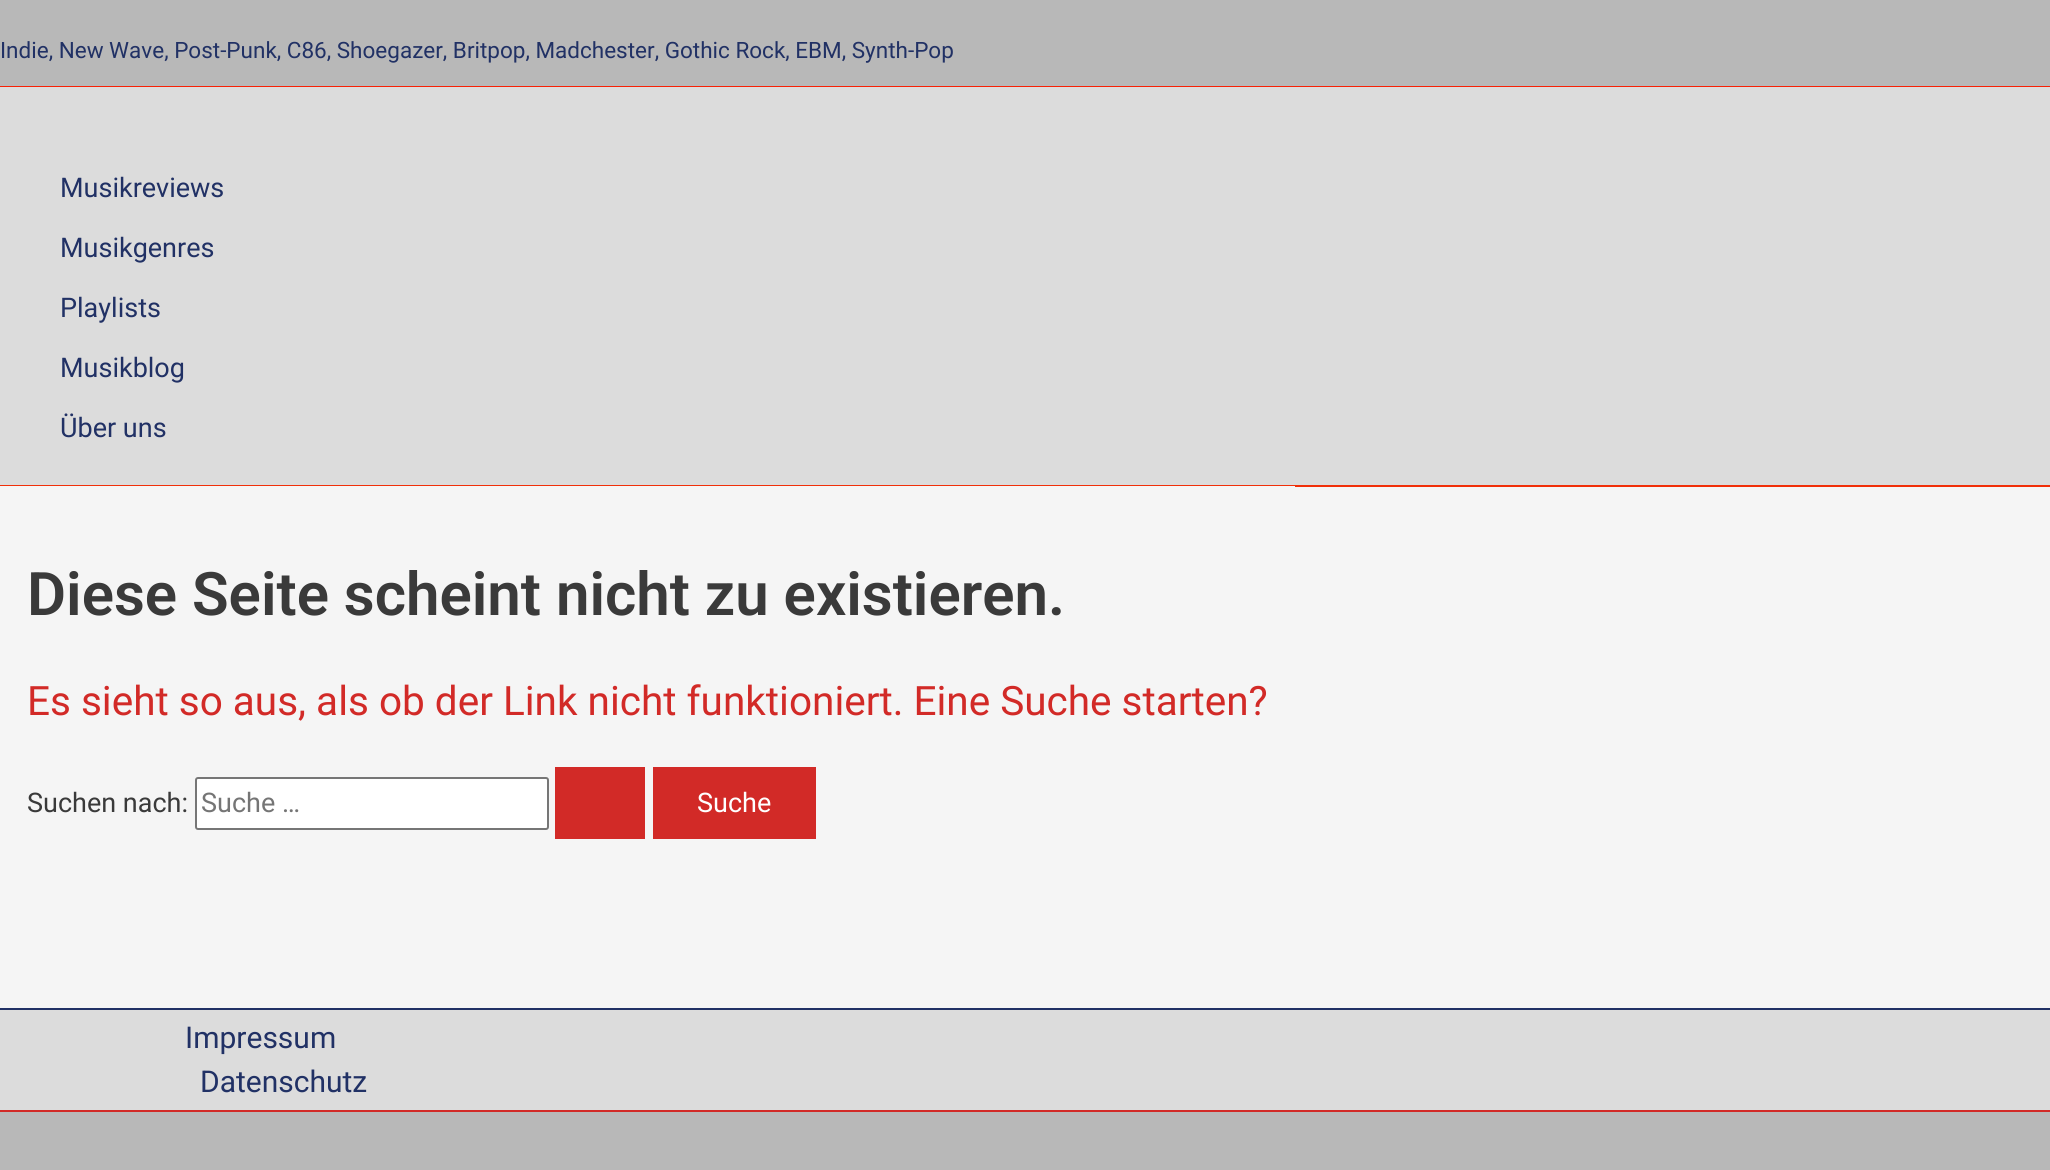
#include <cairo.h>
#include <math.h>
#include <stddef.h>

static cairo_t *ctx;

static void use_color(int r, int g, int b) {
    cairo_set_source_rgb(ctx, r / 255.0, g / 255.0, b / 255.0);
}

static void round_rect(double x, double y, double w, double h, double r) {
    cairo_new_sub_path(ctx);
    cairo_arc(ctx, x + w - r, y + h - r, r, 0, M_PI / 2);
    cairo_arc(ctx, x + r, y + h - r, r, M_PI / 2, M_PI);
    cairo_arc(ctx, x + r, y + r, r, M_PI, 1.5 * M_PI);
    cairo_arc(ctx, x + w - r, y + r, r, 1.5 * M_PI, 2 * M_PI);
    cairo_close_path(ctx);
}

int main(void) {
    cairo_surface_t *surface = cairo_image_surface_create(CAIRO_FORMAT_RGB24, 2050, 1170);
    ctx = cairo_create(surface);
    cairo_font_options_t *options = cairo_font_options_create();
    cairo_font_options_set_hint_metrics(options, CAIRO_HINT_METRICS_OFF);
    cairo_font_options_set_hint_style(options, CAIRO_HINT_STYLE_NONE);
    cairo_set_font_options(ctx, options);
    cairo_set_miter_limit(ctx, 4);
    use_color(245, 245, 245);
    cairo_paint(ctx);
    use_color(184, 184, 184);
    cairo_rectangle(ctx, 0, 0, 2050, 86);
    cairo_fill(ctx);
    use_color(248, 33, 5);
    cairo_rectangle(ctx, 0, 86, 2050, 1);
    cairo_fill(ctx);
    cairo_select_font_face(ctx, "Roboto", CAIRO_FONT_SLANT_NORMAL, CAIRO_FONT_WEIGHT_NORMAL);
    cairo_set_font_size(ctx, 22.5);
    use_color(33, 49, 101);
    cairo_move_to(ctx, 0, 58);
    cairo_show_text(ctx, "Indie, New Wave, Post-Punk, C86, Shoegazer, Britpop, Madchester, Gothic Rock, EBM, Synth-Pop");
    use_color(220, 220, 220);
    cairo_rectangle(ctx, 0, 87, 2050, 398);
    cairo_fill(ctx);
    use_color(241, 47, 9);
    cairo_rectangle(ctx, 0, 485, 2050, 2);
    cairo_fill(ctx);
    cairo_set_font_size(ctx, 27);
    use_color(33, 49, 101);
    cairo_move_to(ctx, 60, 197);
    cairo_show_text(ctx, "Musikreviews");
    cairo_move_to(ctx, 60, 257);
    cairo_show_text(ctx, "Musikgenres");
    cairo_move_to(ctx, 60, 317);
    cairo_show_text(ctx, "Playlists");
    cairo_move_to(ctx, 60, 377);
    cairo_show_text(ctx, "Musikblog");
    cairo_move_to(ctx, 60, 437);
    cairo_show_text(ctx, "Über uns");
    use_color(245, 245, 245);
    cairo_rectangle(ctx, 0, 486, 1295, 1);
    cairo_fill(ctx);
    cairo_select_font_face(ctx, "Roboto SemiBold", CAIRO_FONT_SLANT_NORMAL, CAIRO_FONT_WEIGHT_NORMAL);
    cairo_set_font_size(ctx, 60);
    use_color(58, 58, 58);
    cairo_move_to(ctx, 27, 615);
    cairo_show_text(ctx, "Diese Seite scheint nicht zu existieren.");
    cairo_select_font_face(ctx, "Roboto", CAIRO_FONT_SLANT_NORMAL, CAIRO_FONT_WEIGHT_NORMAL);
    cairo_set_font_size(ctx, 40.5);
    use_color(210, 42, 39);
    cairo_move_to(ctx, 27, 715);
    cairo_show_text(ctx, "Es sieht so aus, als ob der Link nicht funktioniert. Eine Suche starten?");
    cairo_set_font_size(ctx, 27);
    use_color(58, 58, 58);
    cairo_move_to(ctx, 27, 812);
    cairo_show_text(ctx, "Suchen nach:");
    use_color(255, 255, 255);
    round_rect(196, 778, 352, 51, 2);
    cairo_fill_preserve(ctx);
    use_color(118, 118, 118);
    cairo_stroke(ctx);
    use_color(117, 117, 117);
    cairo_move_to(ctx, 201, 812);
    cairo_show_text(ctx, "Suche …");
    use_color(210, 42, 39);
    cairo_rectangle(ctx, 555, 767, 90, 72);
    cairo_fill(ctx);
    cairo_rectangle(ctx, 653, 767, 163, 72);
    cairo_fill(ctx);
    use_color(255, 255, 255);
    cairo_move_to(ctx, 697, 812);
    cairo_show_text(ctx, "Suche");
    use_color(220, 220, 220);
    cairo_rectangle(ctx, 0, 1010, 2050, 100);
    cairo_fill(ctx);
    use_color(33, 49, 101);
    cairo_rectangle(ctx, 0, 1008, 2050, 2);
    cairo_fill(ctx);
    cairo_set_font_size(ctx, 30);
    cairo_move_to(ctx, 185, 1048);
    cairo_show_text(ctx, "Impressum");
    cairo_move_to(ctx, 200, 1092);
    cairo_show_text(ctx, "Datenschutz");
    use_color(184, 184, 184);
    cairo_rectangle(ctx, 0, 1112, 2050, 58);
    cairo_fill(ctx);
    use_color(210, 42, 39);
    cairo_rectangle(ctx, 0, 1110, 2050, 2);
    cairo_fill(ctx);
    cairo_surface_write_to_png(surface, "result.png");
    cairo_font_options_destroy(options);
    cairo_destroy(ctx);
    cairo_surface_destroy(surface);
    return 0;
}
